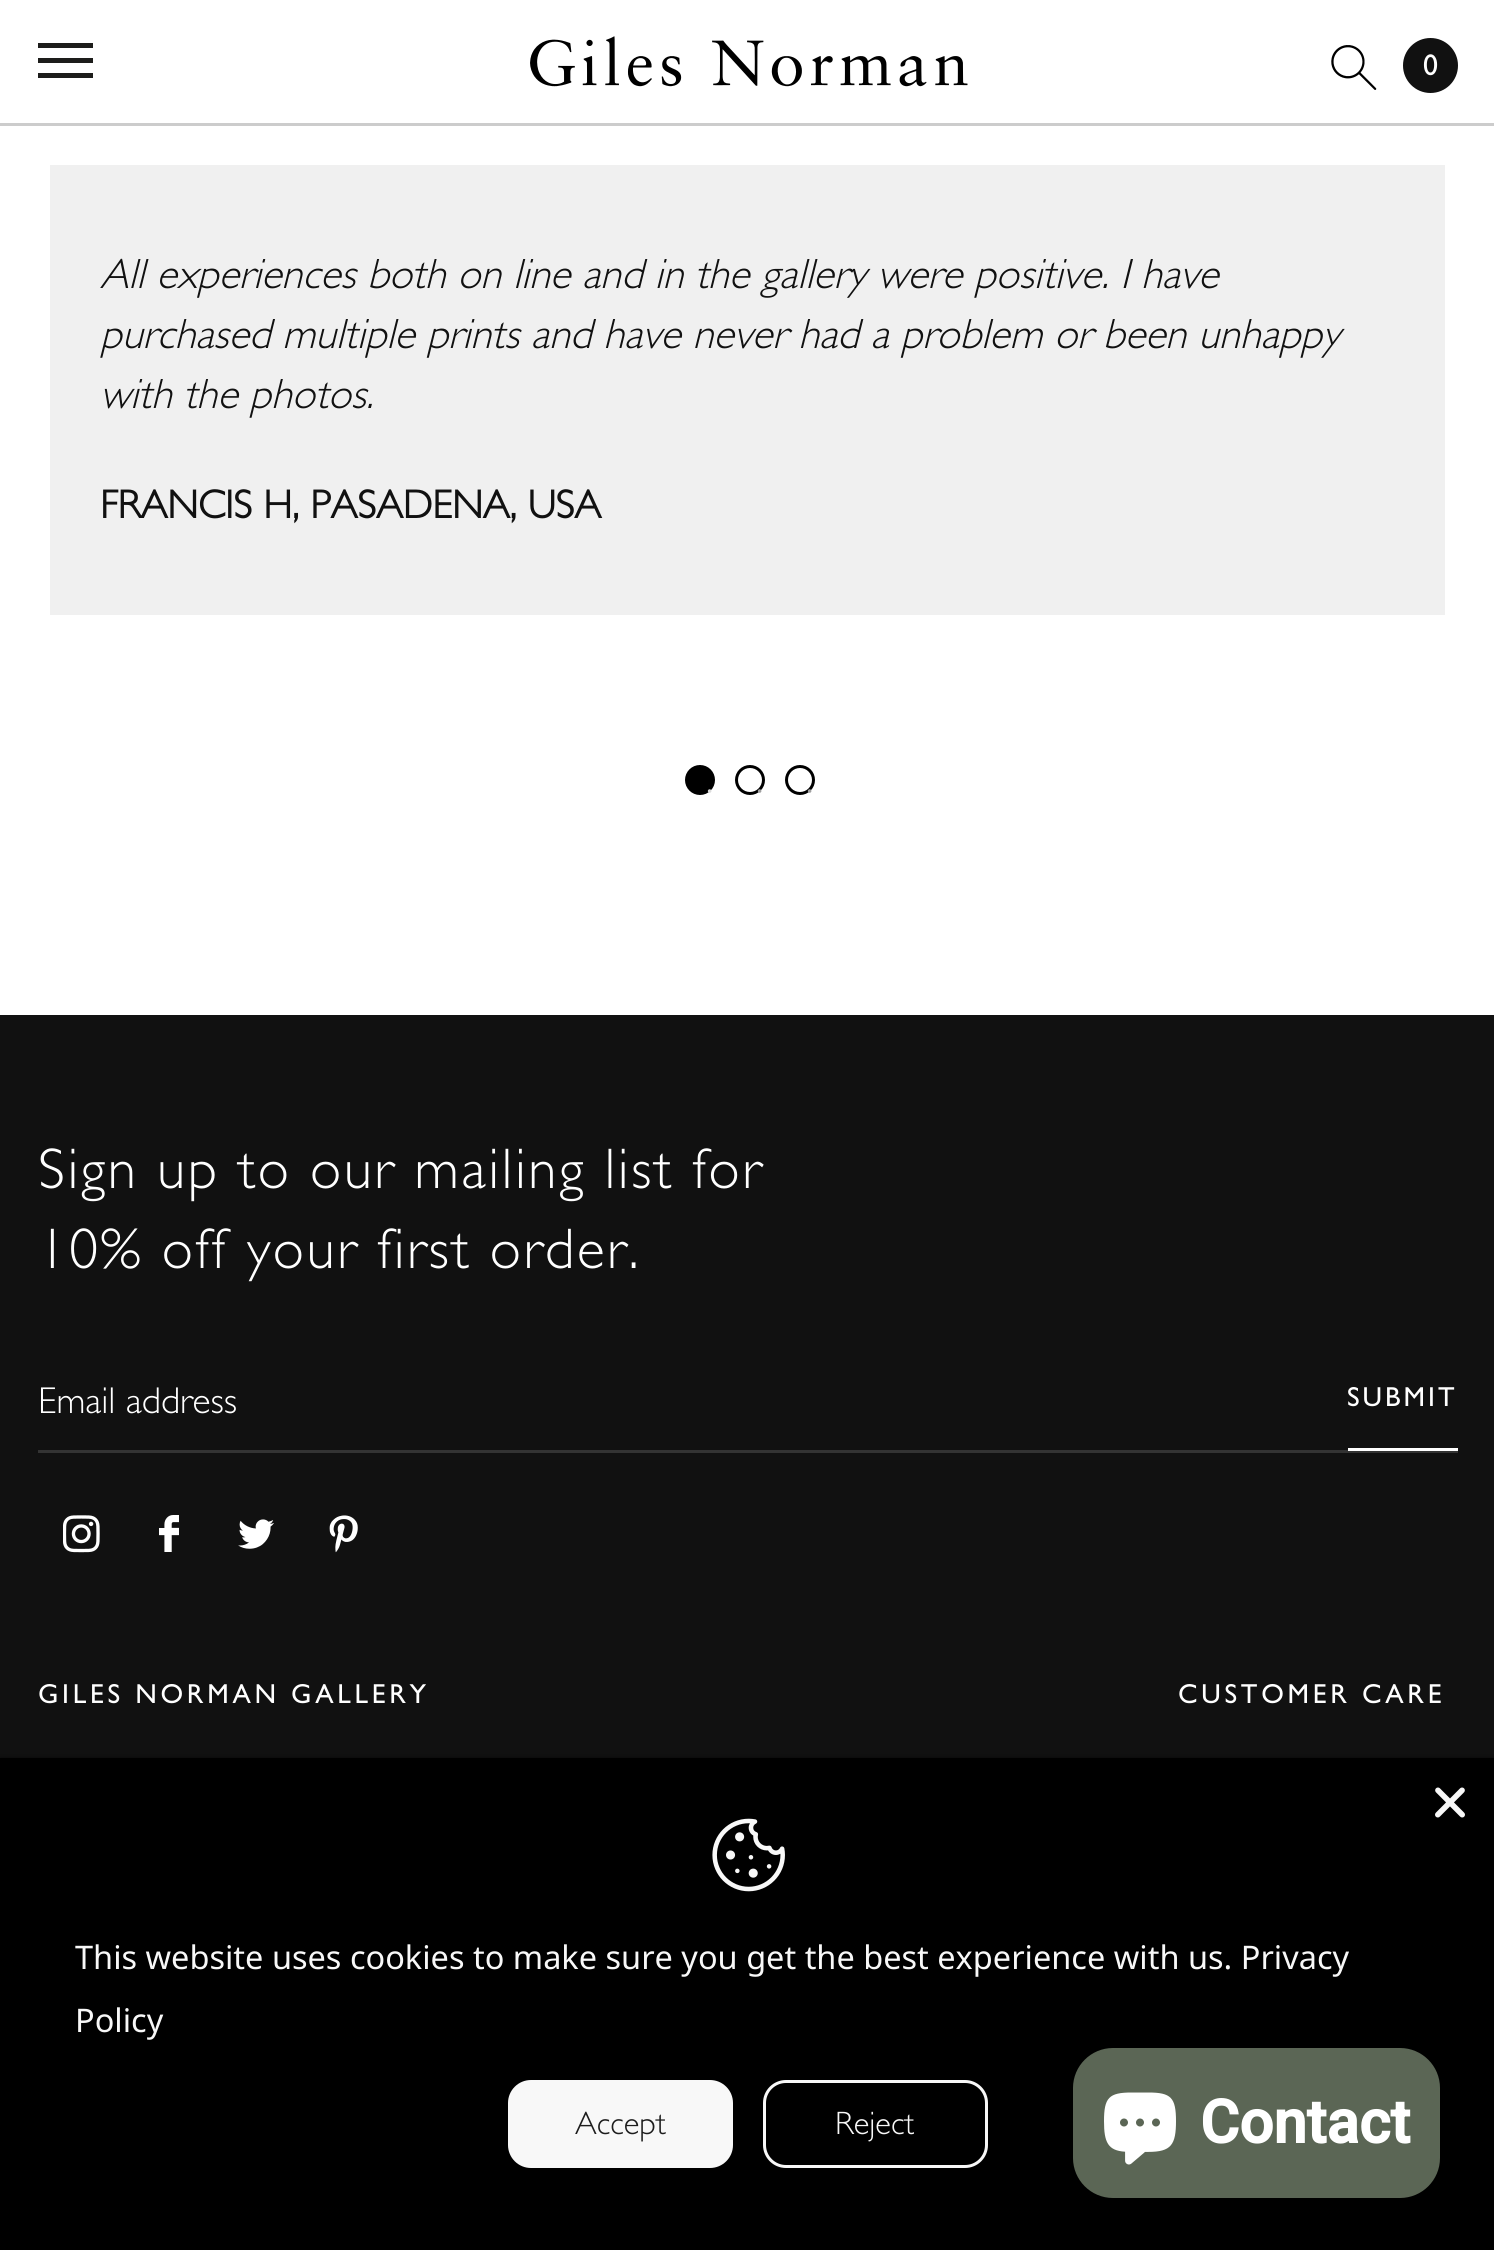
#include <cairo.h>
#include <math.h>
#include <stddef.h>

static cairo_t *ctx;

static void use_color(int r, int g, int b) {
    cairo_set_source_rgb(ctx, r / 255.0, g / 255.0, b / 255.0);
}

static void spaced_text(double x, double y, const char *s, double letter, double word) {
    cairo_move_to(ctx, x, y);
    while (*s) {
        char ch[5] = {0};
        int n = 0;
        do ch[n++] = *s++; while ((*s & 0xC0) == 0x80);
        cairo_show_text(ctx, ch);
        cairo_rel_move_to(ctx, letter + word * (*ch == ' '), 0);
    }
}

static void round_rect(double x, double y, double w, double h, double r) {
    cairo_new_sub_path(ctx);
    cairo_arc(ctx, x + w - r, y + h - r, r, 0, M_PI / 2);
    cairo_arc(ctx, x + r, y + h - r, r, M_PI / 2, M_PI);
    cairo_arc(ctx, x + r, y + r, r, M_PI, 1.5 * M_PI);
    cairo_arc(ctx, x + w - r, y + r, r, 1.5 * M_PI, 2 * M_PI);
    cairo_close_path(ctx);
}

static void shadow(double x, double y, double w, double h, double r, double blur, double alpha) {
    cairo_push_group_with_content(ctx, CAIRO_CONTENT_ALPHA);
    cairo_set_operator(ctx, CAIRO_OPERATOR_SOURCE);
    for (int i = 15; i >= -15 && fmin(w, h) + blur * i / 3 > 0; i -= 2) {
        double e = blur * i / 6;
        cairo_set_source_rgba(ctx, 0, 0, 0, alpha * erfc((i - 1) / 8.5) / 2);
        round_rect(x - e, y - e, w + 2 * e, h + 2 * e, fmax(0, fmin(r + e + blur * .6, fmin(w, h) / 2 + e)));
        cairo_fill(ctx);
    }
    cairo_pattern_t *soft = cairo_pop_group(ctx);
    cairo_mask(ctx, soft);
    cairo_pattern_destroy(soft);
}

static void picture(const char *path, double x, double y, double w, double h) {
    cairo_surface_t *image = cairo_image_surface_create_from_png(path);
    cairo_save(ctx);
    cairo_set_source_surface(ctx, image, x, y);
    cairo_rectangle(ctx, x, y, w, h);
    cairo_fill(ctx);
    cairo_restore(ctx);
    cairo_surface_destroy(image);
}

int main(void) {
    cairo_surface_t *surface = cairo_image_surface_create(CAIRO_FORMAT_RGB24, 1494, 2250);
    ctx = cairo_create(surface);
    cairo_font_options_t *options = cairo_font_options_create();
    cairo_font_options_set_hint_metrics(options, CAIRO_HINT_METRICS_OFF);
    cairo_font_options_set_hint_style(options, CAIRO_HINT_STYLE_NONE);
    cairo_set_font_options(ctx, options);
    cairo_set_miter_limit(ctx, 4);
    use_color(255, 255, 255);
    cairo_paint(ctx);
    use_color(204, 204, 204);
    cairo_rectangle(ctx, 0, 123, 1494, 3);
    cairo_fill(ctx);
    use_color(29, 29, 27);
    cairo_rectangle(ctx, 38, 43, 55, 5);
    cairo_fill(ctx);
    cairo_rectangle(ctx, 38, 58, 55, 5);
    cairo_fill(ctx);
    cairo_rectangle(ctx, 38, 73, 55, 5);
    cairo_fill(ctx);
    picture("img1.png", 530, 36, 438, 51);
    picture("img2.png", 1331, 45, 46, 45);
    use_color(17, 17, 17);
    cairo_arc(ctx, 1430.5, 65.5, 27.5, 0, 2 * M_PI);
    cairo_fill(ctx);
    cairo_select_font_face(ctx, "Gill Sans", CAIRO_FONT_SLANT_NORMAL, CAIRO_FONT_WEIGHT_NORMAL);
    cairo_set_font_size(ctx, 30);
    use_color(255, 255, 255);
    cairo_move_to(ctx, 1423, 75);
    cairo_show_text(ctx, "0");
    use_color(240, 240, 240);
    cairo_rectangle(ctx, 50, 165, 1395, 450);
    cairo_fill(ctx);
    cairo_select_font_face(ctx, "Gill Sans Light", CAIRO_FONT_SLANT_ITALIC, CAIRO_FONT_WEIGHT_NORMAL);
    cairo_set_font_size(ctx, 42.5);
    use_color(17, 17, 17);
    cairo_move_to(ctx, 100, 288);
    cairo_show_text(ctx, "All experiences both on line and in the gallery were positive. I have");
    cairo_move_to(ctx, 100, 348);
    cairo_show_text(ctx, "purchased multiple prints and have never had a problem or been unhappy");
    cairo_move_to(ctx, 100, 408);
    cairo_show_text(ctx, "with the photos.");
    cairo_select_font_face(ctx, "Gill Sans", CAIRO_FONT_SLANT_NORMAL, CAIRO_FONT_WEIGHT_BOLD);
    cairo_set_font_size(ctx, 40);
    cairo_move_to(ctx, 100, 518);
    cairo_show_text(ctx, "FRANCIS H, PASADENA, USA");
    use_color(0, 0, 0);
    cairo_new_path(ctx);
    cairo_arc(ctx, 700, 780, 13.5, 0, 2 * M_PI);
    cairo_fill_preserve(ctx);
    cairo_set_line_width(ctx, 3);
    cairo_stroke(ctx);
    cairo_select_font_face(ctx, "Liberation Serif", CAIRO_FONT_SLANT_NORMAL, CAIRO_FONT_WEIGHT_NORMAL);
    cairo_set_font_size(ctx, 15);
    use_color(219, 219, 219);
    cairo_move_to(ctx, 707, 796);
    cairo_show_text(ctx, "•");
    cairo_new_path(ctx);
    cairo_arc(ctx, 750, 780, 13.5, 0, 2 * M_PI);
    use_color(0, 0, 0);
    cairo_stroke(ctx);
    use_color(159, 159, 159);
    cairo_move_to(ctx, 757, 796);
    cairo_show_text(ctx, "•");
    cairo_new_path(ctx);
    cairo_arc(ctx, 800, 780, 13.5, 0, 2 * M_PI);
    use_color(0, 0, 0);
    cairo_stroke(ctx);
    use_color(159, 159, 159);
    cairo_move_to(ctx, 807, 796);
    cairo_show_text(ctx, "•");
    use_color(17, 17, 17);
    cairo_rectangle(ctx, 0, 1015, 1494, 743);
    cairo_fill(ctx);
    cairo_select_font_face(ctx, "Gill Sans Light", CAIRO_FONT_SLANT_NORMAL, CAIRO_FONT_WEIGHT_NORMAL);
    cairo_set_font_size(ctx, 57.5);
    use_color(255, 255, 255);
    spaced_text(38, 1188, "Sign up to our mailing list for", 2.5, 0);
    spaced_text(38, 1268, "10% off your first order.", 2.5, 0);
    use_color(51, 51, 51);
    cairo_rectangle(ctx, 38, 1450, 1420, 3);
    cairo_fill(ctx);
    cairo_set_font_size(ctx, 37.5);
    use_color(255, 255, 255);
    cairo_move_to(ctx, 38, 1413);
    cairo_show_text(ctx, "Email address");
    cairo_rectangle(ctx, 1348, 1448, 110, 3);
    cairo_fill(ctx);
    cairo_select_font_face(ctx, "Gill Sans", CAIRO_FONT_SLANT_NORMAL, CAIRO_FONT_WEIGHT_NORMAL);
    cairo_set_font_size(ctx, 27.5);
    spaced_text(1347, 1406, "SUBMIT", 3, 0);
    picture("img3.png", 63, 1515, 37, 38);
    picture("img4.png", 159, 1515, 20, 37);
    picture("img5.png", 238, 1519, 36, 30);
    picture("img6.png", 329, 1515, 29, 38);
    spaced_text(38, 1703, "GILES NORMAN GALLERY", 3.75, 0);
    spaced_text(1178, 1703, "CUSTOMER CARE", 3.75, 0);
    use_color(0, 0, 0);
    shadow(0, 1758, 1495, 492, 0, 2.5, 0.5);
    use_color(0, 0, 0);
    cairo_rectangle(ctx, 0, 1758, 1494, 492);
    cairo_fill(ctx);
    picture("img7.png", 1435, 1787, 30, 31);
    picture("img8.png", 712, 1818, 73, 74);
    cairo_select_font_face(ctx, "Noto Sans", CAIRO_FONT_SLANT_NORMAL, CAIRO_FONT_WEIGHT_NORMAL);
    cairo_set_font_size(ctx, 32.5);
    use_color(248, 248, 248);
    cairo_move_to(ctx, 75, 1969);
    cairo_show_text(ctx, "This website uses cookies to make sure you get the best experience with us. Privacy");
    cairo_move_to(ctx, 75, 2032);
    cairo_show_text(ctx, "Policy");
    round_rect(508, 2080, 225, 88, 23);
    cairo_fill(ctx);
    cairo_select_font_face(ctx, "Gill Sans Light", CAIRO_FONT_SLANT_NORMAL, CAIRO_FONT_WEIGHT_NORMAL);
    use_color(29, 29, 29);
    cairo_move_to(ctx, 575, 2134);
    cairo_show_text(ctx, "Accept");
    round_rect(764.5, 2081.5, 222, 85, 21.5);
    use_color(248, 248, 248);
    cairo_stroke(ctx);
    cairo_move_to(ctx, 835, 2134);
    cairo_show_text(ctx, "Reject");
    use_color(91, 102, 85);
    round_rect(1073, 2048, 367, 150, 40);
    cairo_fill(ctx);
    picture("img9.png", 1104, 2092, 72, 73);
    cairo_select_font_face(ctx, "Roboto", CAIRO_FONT_SLANT_NORMAL, CAIRO_FONT_WEIGHT_BOLD);
    cairo_set_font_size(ctx, 60);
    use_color(255, 255, 255);
    cairo_move_to(ctx, 1200, 2143);
    cairo_show_text(ctx, "Contact");
    cairo_surface_write_to_png(surface, "result.png");
    cairo_font_options_destroy(options);
    cairo_destroy(ctx);
    cairo_surface_destroy(surface);
    return 0;
}
